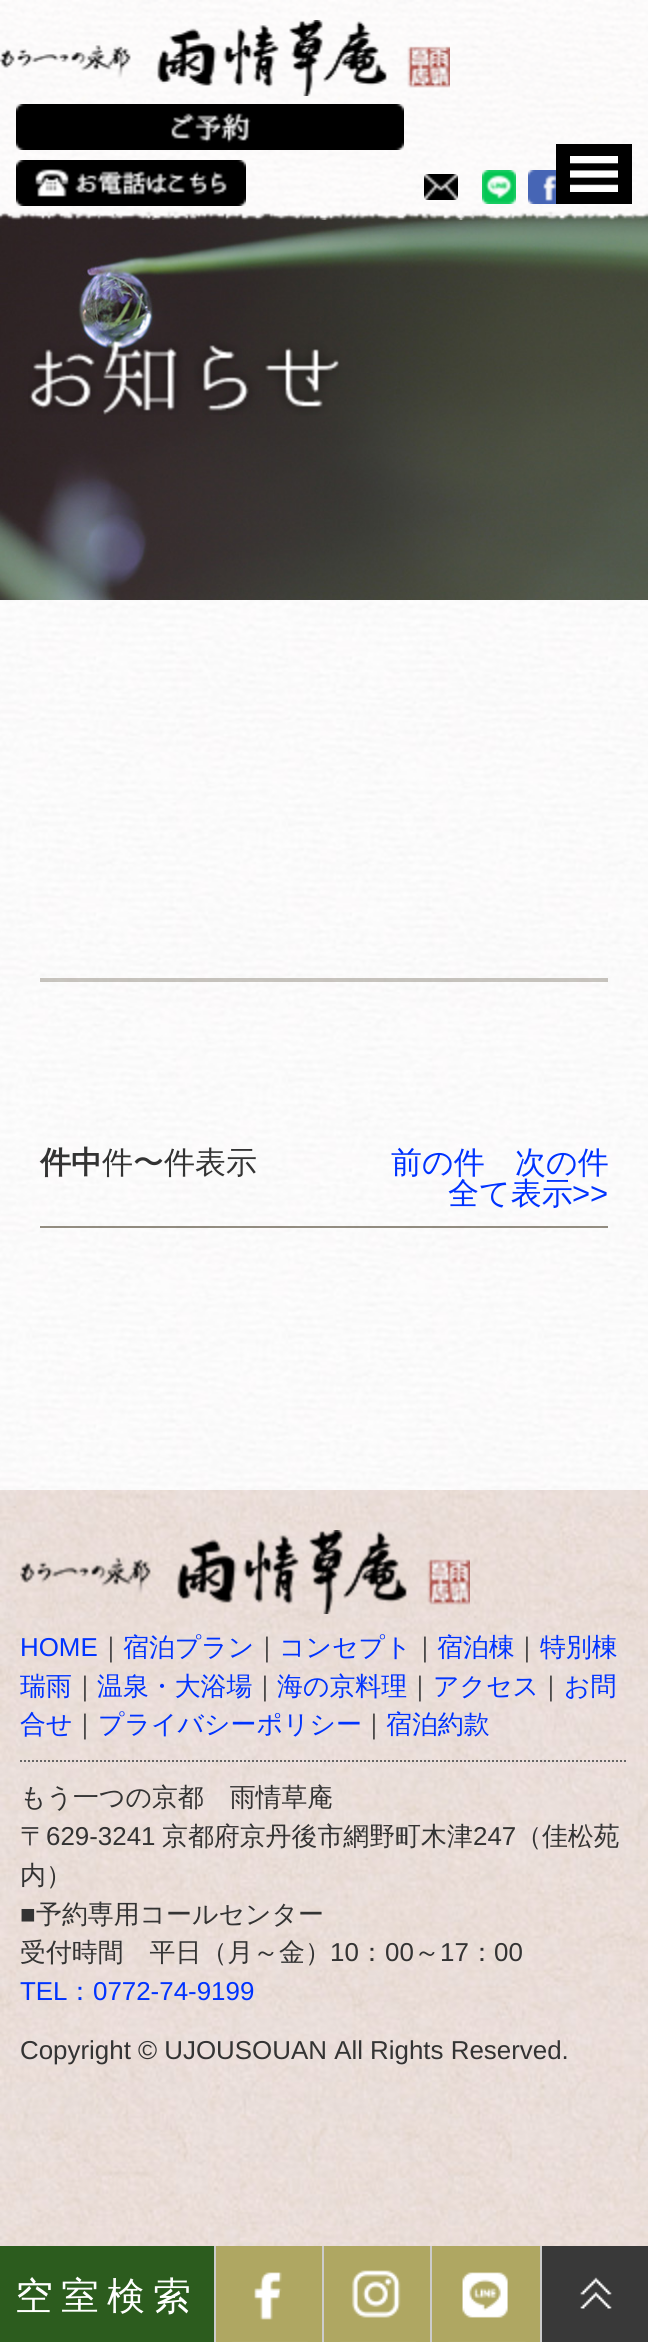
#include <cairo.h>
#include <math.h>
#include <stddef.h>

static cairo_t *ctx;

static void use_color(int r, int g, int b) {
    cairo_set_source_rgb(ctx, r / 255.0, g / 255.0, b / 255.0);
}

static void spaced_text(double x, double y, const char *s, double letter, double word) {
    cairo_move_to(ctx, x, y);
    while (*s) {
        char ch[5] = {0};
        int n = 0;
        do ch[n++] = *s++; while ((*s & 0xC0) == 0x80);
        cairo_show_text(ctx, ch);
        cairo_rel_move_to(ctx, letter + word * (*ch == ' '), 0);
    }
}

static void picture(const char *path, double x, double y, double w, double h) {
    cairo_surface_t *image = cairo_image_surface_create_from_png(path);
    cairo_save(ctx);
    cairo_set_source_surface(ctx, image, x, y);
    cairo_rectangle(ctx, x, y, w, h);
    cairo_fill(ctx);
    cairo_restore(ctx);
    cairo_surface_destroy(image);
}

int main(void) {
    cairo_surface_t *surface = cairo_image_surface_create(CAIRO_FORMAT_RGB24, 648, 2342);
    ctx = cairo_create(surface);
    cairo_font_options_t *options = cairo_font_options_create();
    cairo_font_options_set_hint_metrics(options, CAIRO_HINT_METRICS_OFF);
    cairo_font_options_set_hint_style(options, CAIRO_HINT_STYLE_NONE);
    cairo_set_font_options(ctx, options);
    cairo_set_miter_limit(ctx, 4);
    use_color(255, 255, 255);
    cairo_paint(ctx);
    picture("img1.png", 0, 600, 648, 890);
    picture("img10.png", 0, 211, 648, 389);
    picture("img2.png", 0, 0, 648, 220);
    picture("img3.png", 0, 20, 450, 76);
    picture("img4.png", 16, 104, 388, 46);
    picture("img5.png", 16, 160, 230, 46);
    picture("img6.png", 424, 174, 34, 26);
    picture("img7.png", 482, 170, 34, 34);
    picture("img8.png", 528, 170, 28, 34);
    use_color(0, 0, 0);
    cairo_rectangle(ctx, 556, 144, 76, 60);
    cairo_fill(ctx);
    picture("img9.png", 570, 156, 48, 36);
    picture("img11.png", 28, 334, 311, 81);
    cairo_set_source_rgba(ctx, 0.169, 0.118, 0.031, 0.25);
    cairo_rectangle(ctx, 40, 978, 568, 4);
    cairo_fill(ctx);
    cairo_set_source_rgba(ctx, 0.169, 0.118, 0.024, 0.5);
    cairo_rectangle(ctx, 40, 1226, 568, 2);
    cairo_fill(ctx);
    cairo_select_font_face(ctx, "WenQuanYi Zen Hei", CAIRO_FONT_SLANT_NORMAL, CAIRO_FONT_WEIGHT_BOLD);
    cairo_set_font_size(ctx, 31);
    use_color(51, 51, 51);
    cairo_move_to(ctx, 40, 1173);
    cairo_show_text(ctx, "件中");
    cairo_select_font_face(ctx, "WenQuanYi Zen Hei Medium", CAIRO_FONT_SLANT_NORMAL, CAIRO_FONT_WEIGHT_NORMAL);
    cairo_move_to(ctx, 102, 1173);
    cairo_show_text(ctx, "件〜件表示");
    use_color(0, 51, 255);
    cairo_move_to(ctx, 391, 1173);
    cairo_show_text(ctx, "前の件");
    cairo_move_to(ctx, 515, 1173);
    cairo_show_text(ctx, "次の件");
    cairo_move_to(ctx, 448, 1204);
    cairo_show_text(ctx, "全て表示");
    cairo_select_font_face(ctx, "Liberation Sans", CAIRO_FONT_SLANT_NORMAL, CAIRO_FONT_WEIGHT_NORMAL);
    cairo_move_to(ctx, 572, 1204);
    cairo_show_text(ctx, ">>");
    picture("img12.png", 0, 1490, 648, 756);
    picture("img13.png", 20, 1530, 450, 84);
    cairo_new_path(ctx);
    cairo_move_to(ctx, 20, 1761);
    cairo_line_to(ctx, 628, 1761);
    use_color(102, 102, 102);
    cairo_set_dash(ctx, (double[]){2, 2}, 2, 0);
    cairo_stroke(ctx);
    cairo_set_font_size(ctx, 25.9);
    use_color(0, 51, 255);
    cairo_move_to(ctx, 20, 1656);
    cairo_show_text(ctx, "HOME");
    cairo_select_font_face(ctx, "WenQuanYi Zen Hei Medium", CAIRO_FONT_SLANT_NORMAL, CAIRO_FONT_WEIGHT_NORMAL);
    use_color(51, 51, 51);
    cairo_move_to(ctx, 98, 1656);
    cairo_show_text(ctx, "｜");
    use_color(0, 51, 255);
    cairo_move_to(ctx, 123, 1656);
    cairo_show_text(ctx, "宿泊プラン");
    use_color(51, 51, 51);
    cairo_move_to(ctx, 254, 1656);
    cairo_show_text(ctx, "｜");
    use_color(0, 51, 255);
    cairo_move_to(ctx, 279, 1656);
    cairo_show_text(ctx, "コンセプト");
    use_color(51, 51, 51);
    cairo_move_to(ctx, 412, 1656);
    cairo_show_text(ctx, "｜");
    use_color(0, 51, 255);
    cairo_move_to(ctx, 437, 1656);
    cairo_show_text(ctx, "宿泊棟");
    use_color(51, 51, 51);
    cairo_move_to(ctx, 514, 1656);
    cairo_show_text(ctx, "｜");
    use_color(0, 51, 255);
    cairo_move_to(ctx, 540, 1656);
    cairo_show_text(ctx, "特別棟");
    cairo_move_to(ctx, 20, 1695);
    cairo_show_text(ctx, "瑞雨");
    use_color(51, 51, 51);
    cairo_move_to(ctx, 72, 1695);
    cairo_show_text(ctx, "｜");
    use_color(0, 51, 255);
    cairo_move_to(ctx, 97, 1695);
    cairo_show_text(ctx, "温泉・大浴場");
    use_color(51, 51, 51);
    cairo_move_to(ctx, 252, 1695);
    cairo_show_text(ctx, "｜");
    use_color(0, 51, 255);
    cairo_move_to(ctx, 277, 1695);
    cairo_show_text(ctx, "海の京料理");
    use_color(51, 51, 51);
    cairo_move_to(ctx, 407, 1695);
    cairo_show_text(ctx, "｜");
    use_color(0, 51, 255);
    cairo_move_to(ctx, 433, 1695);
    cairo_show_text(ctx, "アクセス");
    use_color(51, 51, 51);
    cairo_move_to(ctx, 538, 1695);
    cairo_show_text(ctx, "｜");
    use_color(0, 51, 255);
    cairo_move_to(ctx, 564, 1695);
    cairo_show_text(ctx, "お問");
    cairo_move_to(ctx, 20, 1733);
    cairo_show_text(ctx, "合せ");
    use_color(51, 51, 51);
    cairo_move_to(ctx, 72, 1733);
    cairo_show_text(ctx, "｜");
    use_color(0, 51, 255);
    cairo_move_to(ctx, 98, 1733);
    cairo_show_text(ctx, "プライバシーポリシー");
    use_color(51, 51, 51);
    cairo_move_to(ctx, 361, 1733);
    cairo_show_text(ctx, "｜");
    use_color(0, 51, 255);
    cairo_move_to(ctx, 386, 1733);
    cairo_show_text(ctx, "宿泊約款");
    use_color(51, 51, 51);
    cairo_move_to(ctx, 20, 1806);
    cairo_show_text(ctx, "もう一つの京都　雨情草庵");
    cairo_move_to(ctx, 20, 1845);
    cairo_show_text(ctx, "〒");
    cairo_select_font_face(ctx, "Liberation Sans", CAIRO_FONT_SLANT_NORMAL, CAIRO_FONT_WEIGHT_NORMAL);
    cairo_move_to(ctx, 46, 1845);
    cairo_show_text(ctx, "629-3241");
    cairo_select_font_face(ctx, "WenQuanYi Zen Hei Medium", CAIRO_FONT_SLANT_NORMAL, CAIRO_FONT_WEIGHT_NORMAL);
    cairo_move_to(ctx, 162, 1845);
    cairo_show_text(ctx, "京都府京丹後市網野町木津");
    cairo_select_font_face(ctx, "Liberation Sans", CAIRO_FONT_SLANT_NORMAL, CAIRO_FONT_WEIGHT_NORMAL);
    cairo_move_to(ctx, 473, 1845);
    cairo_show_text(ctx, "247");
    cairo_select_font_face(ctx, "WenQuanYi Zen Hei Medium", CAIRO_FONT_SLANT_NORMAL, CAIRO_FONT_WEIGHT_NORMAL);
    cairo_move_to(ctx, 516, 1845);
    cairo_show_text(ctx, "（佳松苑");
    cairo_move_to(ctx, 20, 1884);
    cairo_show_text(ctx, "内）");
    cairo_select_font_face(ctx, "Liberation Sans", CAIRO_FONT_SLANT_NORMAL, CAIRO_FONT_WEIGHT_NORMAL);
    cairo_move_to(ctx, 20, 1923);
    cairo_show_text(ctx, "■");
    cairo_select_font_face(ctx, "WenQuanYi Zen Hei Medium", CAIRO_FONT_SLANT_NORMAL, CAIRO_FONT_WEIGHT_NORMAL);
    cairo_move_to(ctx, 36, 1923);
    cairo_show_text(ctx, "予約専用コールセンター");
    cairo_move_to(ctx, 20, 1961);
    cairo_show_text(ctx, "受付時間　平日（月～金）");
    cairo_select_font_face(ctx, "Liberation Sans", CAIRO_FONT_SLANT_NORMAL, CAIRO_FONT_WEIGHT_NORMAL);
    cairo_move_to(ctx, 330, 1961);
    cairo_show_text(ctx, "10");
    cairo_select_font_face(ctx, "WenQuanYi Zen Hei Medium", CAIRO_FONT_SLANT_NORMAL, CAIRO_FONT_WEIGHT_NORMAL);
    cairo_move_to(ctx, 359, 1961);
    cairo_show_text(ctx, "：");
    cairo_select_font_face(ctx, "Liberation Sans", CAIRO_FONT_SLANT_NORMAL, CAIRO_FONT_WEIGHT_NORMAL);
    cairo_move_to(ctx, 385, 1961);
    cairo_show_text(ctx, "00");
    cairo_select_font_face(ctx, "WenQuanYi Zen Hei Medium", CAIRO_FONT_SLANT_NORMAL, CAIRO_FONT_WEIGHT_NORMAL);
    cairo_move_to(ctx, 414, 1961);
    cairo_show_text(ctx, "～");
    cairo_select_font_face(ctx, "Liberation Sans", CAIRO_FONT_SLANT_NORMAL, CAIRO_FONT_WEIGHT_NORMAL);
    cairo_move_to(ctx, 440, 1961);
    cairo_show_text(ctx, "17");
    cairo_select_font_face(ctx, "WenQuanYi Zen Hei Medium", CAIRO_FONT_SLANT_NORMAL, CAIRO_FONT_WEIGHT_NORMAL);
    cairo_move_to(ctx, 469, 1961);
    cairo_show_text(ctx, "：");
    cairo_select_font_face(ctx, "Liberation Sans", CAIRO_FONT_SLANT_NORMAL, CAIRO_FONT_WEIGHT_NORMAL);
    cairo_move_to(ctx, 494, 1961);
    cairo_show_text(ctx, "00");
    use_color(0, 51, 255);
    cairo_move_to(ctx, 20, 2000);
    cairo_show_text(ctx, "TEL");
    cairo_select_font_face(ctx, "WenQuanYi Zen Hei Medium", CAIRO_FONT_SLANT_NORMAL, CAIRO_FONT_WEIGHT_NORMAL);
    cairo_move_to(ctx, 67, 2000);
    cairo_show_text(ctx, "：");
    cairo_select_font_face(ctx, "Liberation Sans", CAIRO_FONT_SLANT_NORMAL, CAIRO_FONT_WEIGHT_NORMAL);
    cairo_move_to(ctx, 93, 2000);
    cairo_show_text(ctx, "0772-74-9199");
    use_color(51, 51, 51);
    cairo_move_to(ctx, 20, 2059);
    cairo_show_text(ctx, "Copyright © UJOUSOUAN All Rights Reserved.");
    use_color(44, 92, 30);
    cairo_rectangle(ctx, 0, 2246, 214, 96);
    cairo_fill(ctx);
    cairo_select_font_face(ctx, "WenQuanYi Zen Hei Medium", CAIRO_FONT_SLANT_NORMAL, CAIRO_FONT_WEIGHT_NORMAL);
    cairo_set_font_size(ctx, 38);
    use_color(255, 255, 255);
    spaced_text(15, 2309, "空室検索", 8, 0);
    use_color(204, 204, 204);
    cairo_rectangle(ctx, 214, 2246, 2, 96);
    cairo_fill(ctx);
    picture("img14.png", 216, 2246, 106, 96);
    cairo_rectangle(ctx, 322, 2246, 2, 96);
    cairo_fill(ctx);
    picture("img15.png", 324, 2246, 106, 96);
    cairo_rectangle(ctx, 430, 2246, 2, 96);
    cairo_fill(ctx);
    picture("img16.png", 432, 2246, 108, 96);
    cairo_rectangle(ctx, 540, 2246, 2, 96);
    cairo_fill(ctx);
    picture("img17.png", 542, 2246, 106, 96);
    cairo_surface_write_to_png(surface, "result.png");
    cairo_font_options_destroy(options);
    cairo_destroy(ctx);
    cairo_surface_destroy(surface);
    return 0;
}
